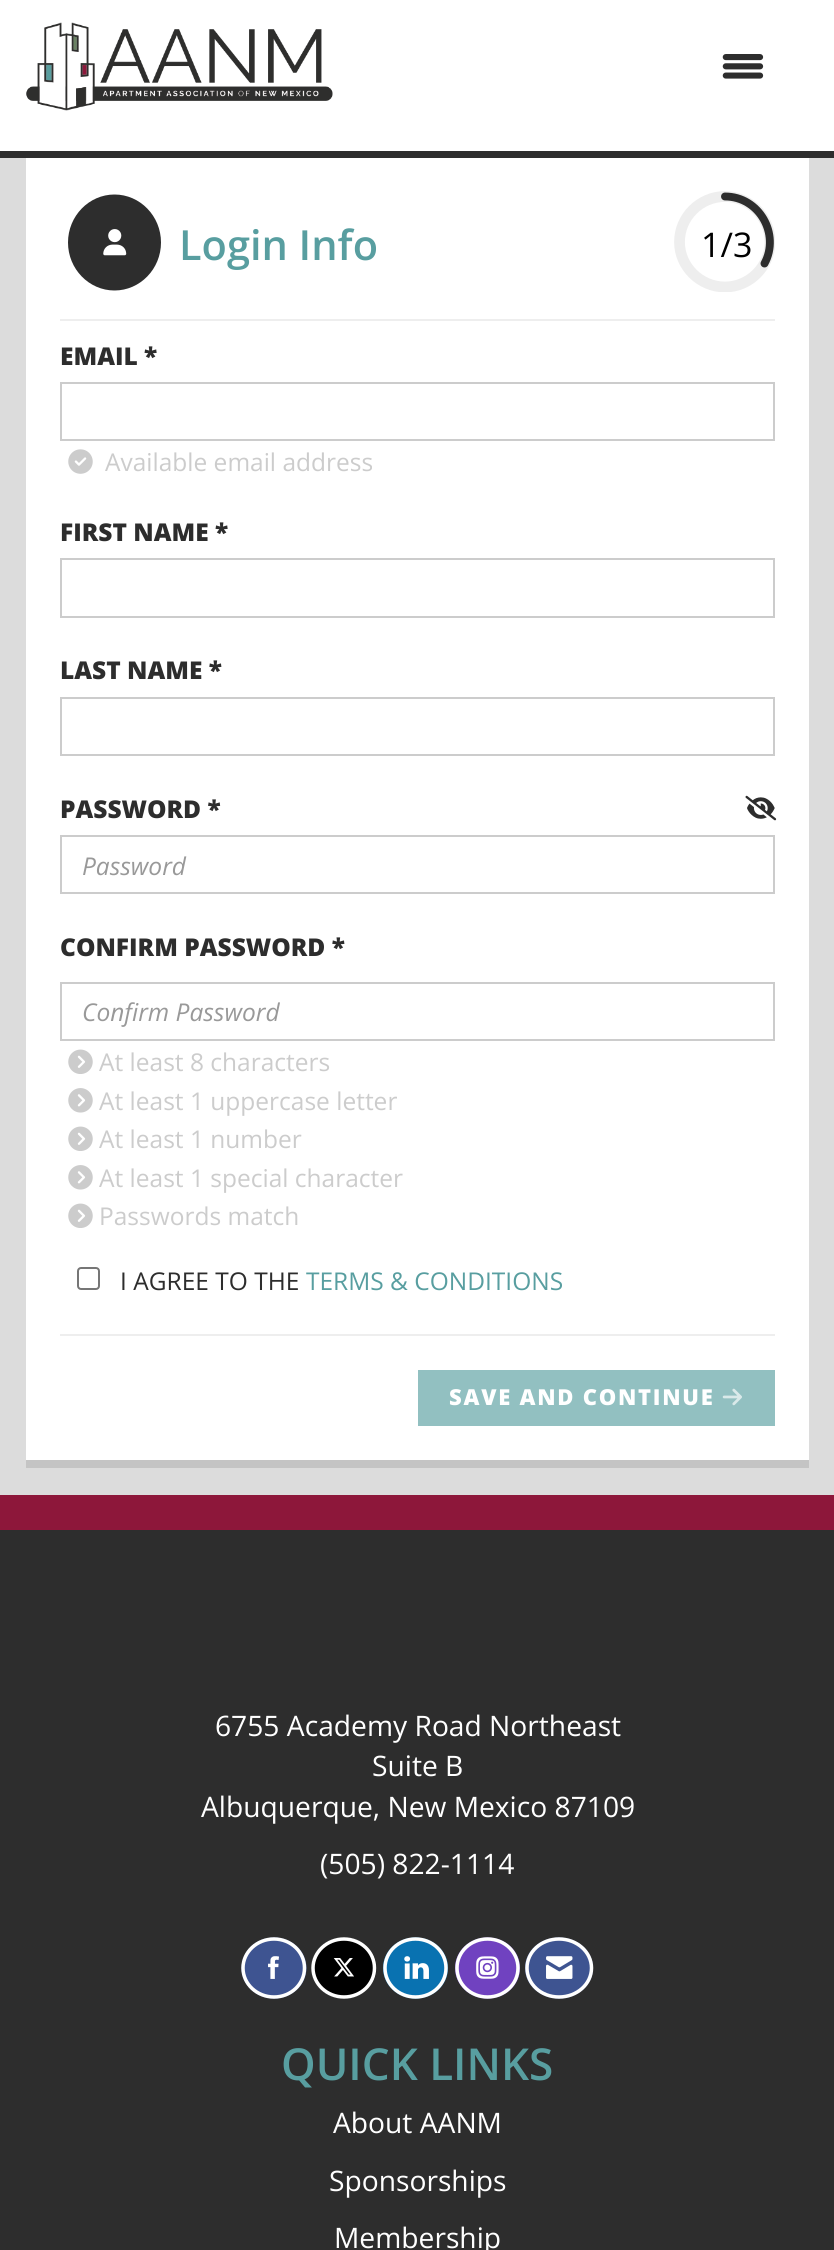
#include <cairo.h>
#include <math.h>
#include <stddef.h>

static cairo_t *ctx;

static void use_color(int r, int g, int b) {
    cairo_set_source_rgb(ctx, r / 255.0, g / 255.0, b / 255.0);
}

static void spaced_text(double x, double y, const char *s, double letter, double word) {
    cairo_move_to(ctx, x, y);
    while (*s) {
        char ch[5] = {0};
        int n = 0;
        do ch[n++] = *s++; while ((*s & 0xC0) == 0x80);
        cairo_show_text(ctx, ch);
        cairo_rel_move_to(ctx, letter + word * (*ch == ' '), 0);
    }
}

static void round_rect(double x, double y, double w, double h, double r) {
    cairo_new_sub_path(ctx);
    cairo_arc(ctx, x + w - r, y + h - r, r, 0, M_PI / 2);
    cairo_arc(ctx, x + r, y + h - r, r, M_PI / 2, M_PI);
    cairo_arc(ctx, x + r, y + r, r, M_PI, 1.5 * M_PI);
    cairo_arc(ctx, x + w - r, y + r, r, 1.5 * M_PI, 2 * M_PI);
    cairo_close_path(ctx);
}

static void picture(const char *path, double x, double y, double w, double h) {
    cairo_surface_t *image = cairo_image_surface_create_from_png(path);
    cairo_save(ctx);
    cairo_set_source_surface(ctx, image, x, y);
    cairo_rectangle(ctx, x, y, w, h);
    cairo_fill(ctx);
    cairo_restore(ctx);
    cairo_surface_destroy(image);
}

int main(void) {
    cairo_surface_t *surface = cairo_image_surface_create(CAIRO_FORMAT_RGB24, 834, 2250);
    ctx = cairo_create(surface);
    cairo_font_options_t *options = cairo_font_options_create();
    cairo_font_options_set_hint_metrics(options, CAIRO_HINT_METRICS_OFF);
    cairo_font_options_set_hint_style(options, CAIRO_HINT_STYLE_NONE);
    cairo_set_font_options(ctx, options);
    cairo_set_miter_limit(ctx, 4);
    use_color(255, 255, 255);
    cairo_paint(ctx);
    use_color(45, 45, 45);
    cairo_rectangle(ctx, 0, 151, 834, 7);
    cairo_fill(ctx);
    picture("img1.png", 26, 22, 307, 89);
    picture("img2.png", 722, 54, 42, 25);
    use_color(220, 220, 220);
    cairo_rectangle(ctx, 0, 158, 834, 1337);
    cairo_fill(ctx);
    use_color(196, 196, 196);
    cairo_new_path(ctx);
    cairo_move_to(ctx, 26, 166);
    cairo_line_to(ctx, 26, 1468);
    cairo_line_to(ctx, 809, 1468);
    cairo_line_to(ctx, 809, 166);
    cairo_line_to(ctx, 808, 166);
    cairo_line_to(ctx, 808, 1460);
    cairo_line_to(ctx, 26, 1460);
    cairo_close_path(ctx);
    cairo_fill(ctx);
    use_color(255, 255, 255);
    cairo_rectangle(ctx, 26, 158, 783, 1302);
    cairo_fill(ctx);
    use_color(45, 45, 45);
    cairo_new_path(ctx);
    cairo_move_to(ctx, 114.5, 194.5);
    cairo_curve_to(ctx, 140, 194.5, 161, 216, 161, 242.5);
    cairo_curve_to(ctx, 161, 269, 140, 290.5, 114.5, 290.5);
    cairo_curve_to(ctx, 89, 290.5, 68, 269, 68, 242.5);
    cairo_curve_to(ctx, 68, 216, 89, 194.5, 114.5, 194.5);
    cairo_close_path(ctx);
    cairo_fill(ctx);
    picture("img3.png", 103, 229, 24, 27);
    cairo_select_font_face(ctx, "Open Sans SemiBold", CAIRO_FONT_SLANT_NORMAL, CAIRO_FONT_WEIGHT_NORMAL);
    cairo_set_font_size(ctx, 41.5);
    use_color(88, 158, 160);
    cairo_move_to(ctx, 179, 260);
    cairo_show_text(ctx, "Login Info");
    cairo_save(ctx);
    cairo_rectangle(ctx, 674, 191, 101, 101);
    cairo_clip(ctx);
    cairo_new_path(ctx);
    cairo_move_to(ctx, 725, 196.5);
    cairo_curve_to(ctx, 749.5, 196.5, 770, 217, 770, 242);
    cairo_curve_to(ctx, 770, 266.5, 749.5, 287, 725, 287);
    cairo_curve_to(ctx, 700, 287, 679.5, 266.5, 679.5, 242);
    cairo_curve_to(ctx, 679.5, 217, 700, 196.5, 725, 196.5);
    use_color(238, 238, 238);
    cairo_set_line_width(ctx, 10.8);
    cairo_stroke(ctx);
    cairo_restore(ctx);
    cairo_new_path(ctx);
    cairo_move_to(ctx, 725, 196.5);
    cairo_curve_to(ctx, 759, 196.5, 780.5, 234, 764.5, 263.5);
    use_color(45, 45, 45);
    cairo_set_line_width(ctx, 7.9);
    cairo_set_line_cap(ctx, CAIRO_LINE_CAP_ROUND);
    cairo_stroke(ctx);
    cairo_select_font_face(ctx, "Open Sans", CAIRO_FONT_SLANT_NORMAL, CAIRO_FONT_WEIGHT_NORMAL);
    cairo_set_font_size(ctx, 34);
    use_color(0, 0, 0);
    cairo_move_to(ctx, 701, 257);
    cairo_show_text(ctx, "1/3");
    use_color(238, 238, 238);
    cairo_rectangle(ctx, 60, 319, 715, 2);
    cairo_fill(ctx);
    cairo_select_font_face(ctx, "Open Sans ExtraBold", CAIRO_FONT_SLANT_NORMAL, CAIRO_FONT_WEIGHT_NORMAL);
    cairo_set_font_size(ctx, 24.5);
    use_color(45, 45, 45);
    cairo_move_to(ctx, 60, 365);
    cairo_show_text(ctx, "EMAIL *");
    cairo_rectangle(ctx, 61, 383, 713, 57);
    use_color(204, 204, 204);
    cairo_set_line_width(ctx, 2);
    cairo_set_line_cap(ctx, CAIRO_LINE_CAP_BUTT);
    cairo_stroke(ctx);
    picture("img4.png", 68, 449, 25, 25);
    cairo_select_font_face(ctx, "Open Sans", CAIRO_FONT_SLANT_NORMAL, CAIRO_FONT_WEIGHT_NORMAL);
    cairo_move_to(ctx, 105, 471);
    cairo_show_text(ctx, "Available email address");
    cairo_select_font_face(ctx, "Open Sans ExtraBold", CAIRO_FONT_SLANT_NORMAL, CAIRO_FONT_WEIGHT_NORMAL);
    use_color(45, 45, 45);
    cairo_move_to(ctx, 60, 541);
    cairo_show_text(ctx, "FIRST NAME *");
    cairo_rectangle(ctx, 61, 559, 713, 58);
    use_color(204, 204, 204);
    cairo_stroke(ctx);
    use_color(45, 45, 45);
    cairo_move_to(ctx, 60, 679);
    cairo_show_text(ctx, "LAST NAME *");
    cairo_rectangle(ctx, 61, 698, 713, 57);
    use_color(204, 204, 204);
    cairo_stroke(ctx);
    use_color(45, 45, 45);
    cairo_move_to(ctx, 60, 818);
    cairo_show_text(ctx, "PASSWORD *");
    picture("img5.png", 745, 795, 32, 26);
    cairo_rectangle(ctx, 61, 836, 713, 57);
    use_color(204, 204, 204);
    cairo_stroke(ctx);
    cairo_select_font_face(ctx, "Open Sans", CAIRO_FONT_SLANT_ITALIC, CAIRO_FONT_WEIGHT_NORMAL);
    use_color(153, 153, 153);
    cairo_move_to(ctx, 82, 875);
    cairo_show_text(ctx, "Password");
    cairo_select_font_face(ctx, "Open Sans ExtraBold", CAIRO_FONT_SLANT_NORMAL, CAIRO_FONT_WEIGHT_NORMAL);
    use_color(45, 45, 45);
    cairo_move_to(ctx, 60, 956);
    cairo_show_text(ctx, "CONFIRM PASSWORD *");
    cairo_rectangle(ctx, 61, 983, 713, 57);
    use_color(204, 204, 204);
    cairo_stroke(ctx);
    cairo_select_font_face(ctx, "Open Sans", CAIRO_FONT_SLANT_ITALIC, CAIRO_FONT_WEIGHT_NORMAL);
    use_color(153, 153, 153);
    cairo_move_to(ctx, 82, 1021);
    cairo_show_text(ctx, "Confirm Password");
    picture("img6.png", 68, 1049, 25, 25);
    cairo_select_font_face(ctx, "Open Sans", CAIRO_FONT_SLANT_NORMAL, CAIRO_FONT_WEIGHT_NORMAL);
    use_color(204, 204, 204);
    cairo_move_to(ctx, 99, 1071);
    cairo_show_text(ctx, "At least 8 characters");
    picture("img7.png", 68, 1088, 25, 25);
    cairo_move_to(ctx, 99, 1110);
    cairo_show_text(ctx, "At least 1 uppercase letter");
    picture("img6.png", 68, 1126, 25, 25);
    cairo_move_to(ctx, 99, 1148);
    cairo_show_text(ctx, "At least 1 number");
    picture("img7.png", 68, 1165, 25, 25);
    cairo_move_to(ctx, 99, 1187);
    cairo_show_text(ctx, "At least 1 special character");
    picture("img6.png", 68, 1203, 25, 25);
    cairo_move_to(ctx, 99, 1225);
    cairo_show_text(ctx, "Passwords match");
    round_rect(78, 1268, 21, 21, 3);
    use_color(118, 118, 118);
    cairo_stroke(ctx);
    use_color(45, 45, 45);
    cairo_move_to(ctx, 120, 1290);
    cairo_show_text(ctx, "I AGREE TO THE");
    use_color(88, 158, 160);
    cairo_move_to(ctx, 306, 1290);
    cairo_show_text(ctx, "TERMS & CONDITIONS");
    use_color(238, 238, 238);
    cairo_rectangle(ctx, 60, 1334, 715, 2);
    cairo_fill(ctx);
    use_color(146, 192, 193);
    cairo_rectangle(ctx, 418, 1370, 357, 56);
    cairo_fill(ctx);
    cairo_select_font_face(ctx, "Open Sans ExtraBold", CAIRO_FONT_SLANT_NORMAL, CAIRO_FONT_WEIGHT_NORMAL);
    cairo_set_font_size(ctx, 22);
    use_color(255, 255, 255);
    spaced_text(449, 1405, "SAVE AND CONTINUE", 1.75, 0);
    picture("img8.png", 722, 1388, 20, 18);
    use_color(141, 23, 58);
    cairo_rectangle(ctx, 0, 1495, 834, 35);
    cairo_fill(ctx);
    use_color(45, 45, 45);
    cairo_rectangle(ctx, 0, 1530, 834, 720);
    cairo_fill(ctx);
    cairo_select_font_face(ctx, "Open Sans", CAIRO_FONT_SLANT_NORMAL, CAIRO_FONT_WEIGHT_NORMAL);
    cairo_set_font_size(ctx, 28.2);
    use_color(255, 255, 255);
    cairo_move_to(ctx, 215, 1736);
    cairo_show_text(ctx, "6755 Academy Road Northeast");
    cairo_move_to(ctx, 372, 1776);
    cairo_show_text(ctx, "Suite B");
    cairo_move_to(ctx, 201, 1817);
    cairo_show_text(ctx, "Albuquerque, New Mexico 87109");
    cairo_move_to(ctx, 320, 1874);
    cairo_show_text(ctx, "(505) 822-1114");
    use_color(62, 84, 145);
    cairo_new_path(ctx);
    cairo_move_to(ctx, 274, 1937.5);
    cairo_curve_to(ctx, 292, 1937.5, 306.5, 1951, 306.5, 1968);
    cairo_curve_to(ctx, 306.5, 1985, 292, 1998.5, 274, 1998.5);
    cairo_curve_to(ctx, 256, 1998.5, 241.5, 1985, 241.5, 1968);
    cairo_curve_to(ctx, 241.5, 1951, 256, 1937.5, 274, 1937.5);
    cairo_close_path(ctx);
    cairo_fill(ctx);
    cairo_new_path(ctx);
    cairo_move_to(ctx, 274, 1939);
    cairo_curve_to(ctx, 291, 1939, 304.5, 1952, 304.5, 1968);
    cairo_curve_to(ctx, 304.5, 1984, 291, 1997, 274, 1997);
    cairo_curve_to(ctx, 257, 1997, 243, 1984, 243, 1968);
    cairo_curve_to(ctx, 243, 1952, 257, 1939, 274, 1939);
    cairo_close_path(ctx);
    use_color(255, 255, 255);
    cairo_set_line_width(ctx, 3.5);
    cairo_stroke(ctx);
    picture("img9.png", 268, 1956, 11, 23);
    use_color(0, 0, 0);
    cairo_new_path(ctx);
    cairo_move_to(ctx, 344, 1937.5);
    cairo_curve_to(ctx, 362, 1937.5, 376.5, 1951, 376.5, 1968);
    cairo_curve_to(ctx, 376.5, 1985, 362, 1998.5, 344, 1998.5);
    cairo_curve_to(ctx, 326, 1998.5, 311.5, 1985, 311.5, 1968);
    cairo_curve_to(ctx, 311.5, 1951, 326, 1937.5, 344, 1937.5);
    cairo_close_path(ctx);
    cairo_fill(ctx);
    cairo_new_path(ctx);
    cairo_move_to(ctx, 344, 1939);
    cairo_curve_to(ctx, 361, 1939, 374.5, 1952, 374.5, 1968);
    cairo_curve_to(ctx, 374.5, 1984, 361, 1997, 344, 1997);
    cairo_curve_to(ctx, 327, 1997, 313, 1984, 313, 1968);
    cairo_curve_to(ctx, 313, 1952, 327, 1939, 344, 1939);
    cairo_close_path(ctx);
    use_color(255, 255, 255);
    cairo_stroke(ctx);
    picture("img10.png", 333, 1958, 21, 19);
    use_color(9, 114, 177);
    cairo_new_path(ctx);
    cairo_move_to(ctx, 415.5, 1937.5);
    cairo_curve_to(ctx, 433.5, 1937.5, 448, 1951, 448, 1968);
    cairo_curve_to(ctx, 448, 1985, 433.5, 1998.5, 415.5, 1998.5);
    cairo_curve_to(ctx, 397.5, 1998.5, 383, 1985, 383, 1968);
    cairo_curve_to(ctx, 383, 1951, 397.5, 1937.5, 415.5, 1937.5);
    cairo_close_path(ctx);
    cairo_fill(ctx);
    cairo_new_path(ctx);
    cairo_move_to(ctx, 415.5, 1939);
    cairo_curve_to(ctx, 432.5, 1939, 446, 1952, 446, 1968);
    cairo_curve_to(ctx, 446, 1984, 432.5, 1997, 415.5, 1997);
    cairo_curve_to(ctx, 398.5, 1997, 385, 1984, 385, 1968);
    cairo_curve_to(ctx, 385, 1952, 398.5, 1939, 415.5, 1939);
    cairo_close_path(ctx);
    use_color(255, 255, 255);
    cairo_stroke(ctx);
    picture("img11.png", 404, 1956, 25, 23);
    use_color(112, 66, 192);
    cairo_new_path(ctx);
    cairo_move_to(ctx, 487.5, 1937.5);
    cairo_curve_to(ctx, 505.5, 1937.5, 520, 1951, 520, 1968);
    cairo_curve_to(ctx, 520, 1985, 505.5, 1998.5, 487.5, 1998.5);
    cairo_curve_to(ctx, 469.5, 1998.5, 455, 1985, 455, 1968);
    cairo_curve_to(ctx, 455, 1951, 469.5, 1937.5, 487.5, 1937.5);
    cairo_close_path(ctx);
    cairo_fill(ctx);
    cairo_new_path(ctx);
    cairo_move_to(ctx, 487.5, 1939);
    cairo_curve_to(ctx, 504.5, 1939, 518, 1952, 518, 1968);
    cairo_curve_to(ctx, 518, 1984, 504.5, 1997, 487.5, 1997);
    cairo_curve_to(ctx, 470.5, 1997, 457, 1984, 457, 1968);
    cairo_curve_to(ctx, 457, 1952, 470.5, 1939, 487.5, 1939);
    cairo_close_path(ctx);
    use_color(255, 255, 255);
    cairo_stroke(ctx);
    picture("img12.png", 476, 1956, 23, 23);
    use_color(62, 84, 145);
    cairo_new_path(ctx);
    cairo_move_to(ctx, 559, 1937.5);
    cairo_curve_to(ctx, 578, 1937.5, 593, 1951, 593, 1968);
    cairo_curve_to(ctx, 593, 1985, 578, 1998.5, 559, 1998.5);
    cairo_curve_to(ctx, 540, 1998.5, 525, 1985, 525, 1968);
    cairo_curve_to(ctx, 525, 1951, 540, 1937.5, 559, 1937.5);
    cairo_close_path(ctx);
    cairo_fill(ctx);
    cairo_new_path(ctx);
    cairo_move_to(ctx, 559, 1939);
    cairo_curve_to(ctx, 577, 1939, 591.5, 1952, 591.5, 1968);
    cairo_curve_to(ctx, 591.5, 1984, 577, 1997, 559, 1997);
    cairo_curve_to(ctx, 541, 1997, 527, 1984, 527, 1968);
    cairo_curve_to(ctx, 527, 1952, 541, 1939, 559, 1939);
    cairo_close_path(ctx);
    use_color(255, 255, 255);
    cairo_stroke(ctx);
    picture("img13.png", 546, 1956, 27, 23);
    cairo_select_font_face(ctx, "Open Sans SemiBold", CAIRO_FONT_SLANT_NORMAL, CAIRO_FONT_WEIGHT_NORMAL);
    cairo_set_font_size(ctx, 44);
    use_color(88, 158, 160);
    cairo_move_to(ctx, 281, 2080);
    cairo_show_text(ctx, "QUICK LINKS");
    cairo_select_font_face(ctx, "Open Sans", CAIRO_FONT_SLANT_NORMAL, CAIRO_FONT_WEIGHT_NORMAL);
    cairo_set_font_size(ctx, 28.2);
    use_color(255, 255, 255);
    cairo_move_to(ctx, 333, 2133);
    cairo_show_text(ctx, "About AANM");
    cairo_move_to(ctx, 329, 2191);
    cairo_show_text(ctx, "Sponsorships");
    cairo_move_to(ctx, 334, 2248);
    cairo_show_text(ctx, "Membership");
    cairo_surface_write_to_png(surface, "result.png");
    cairo_font_options_destroy(options);
    cairo_destroy(ctx);
    cairo_surface_destroy(surface);
    return 0;
}
